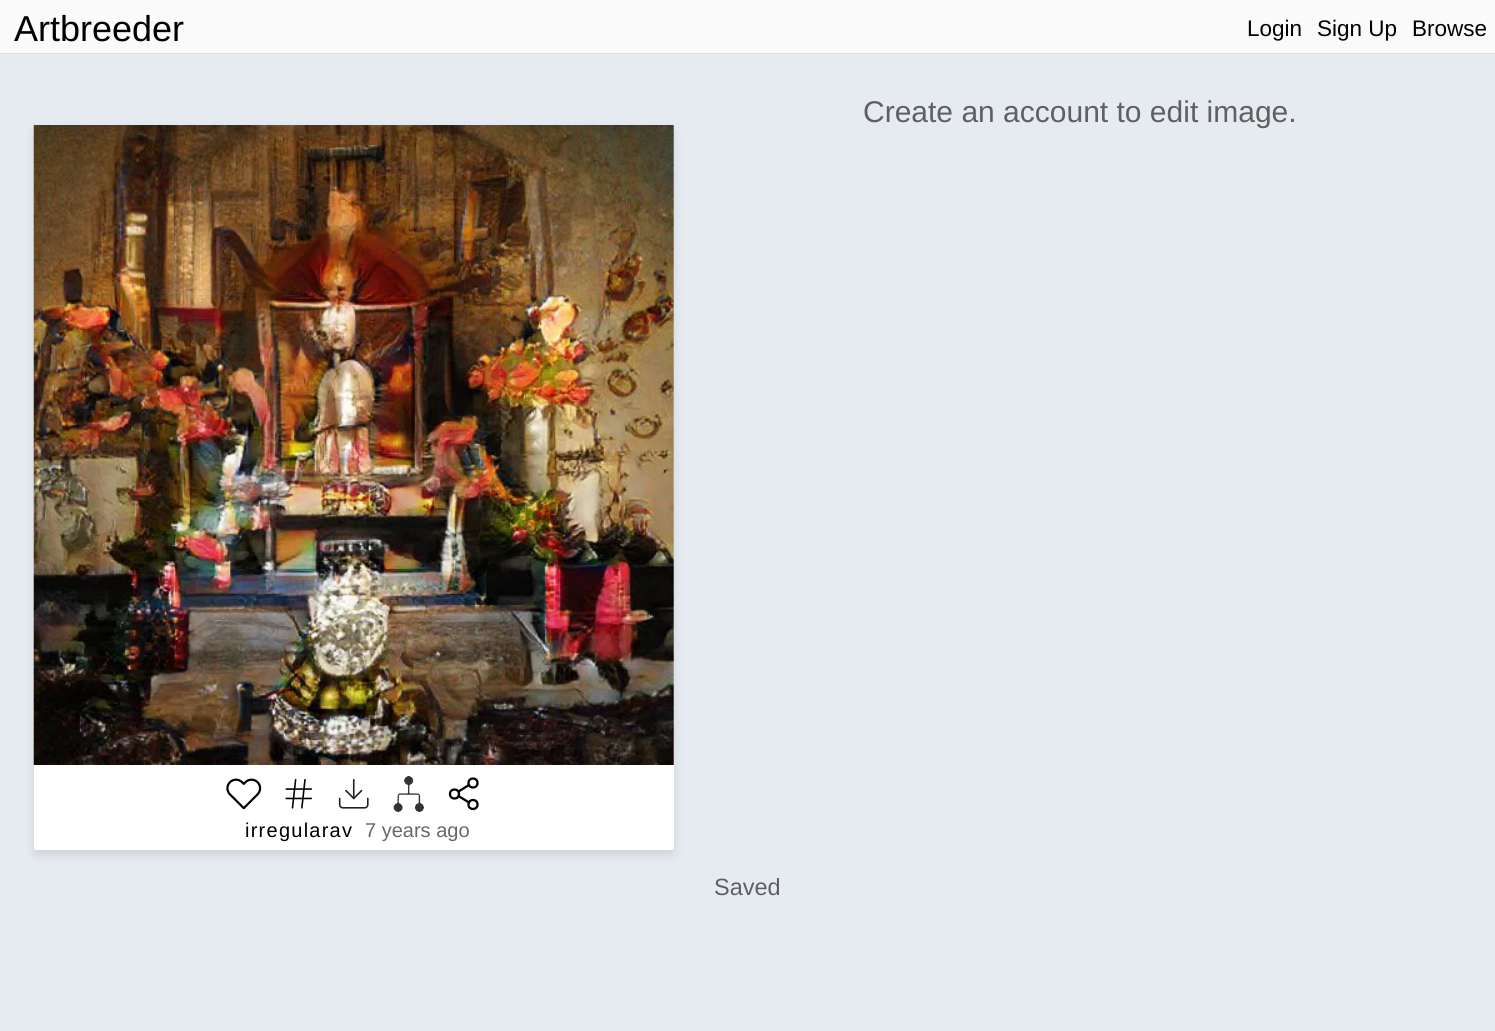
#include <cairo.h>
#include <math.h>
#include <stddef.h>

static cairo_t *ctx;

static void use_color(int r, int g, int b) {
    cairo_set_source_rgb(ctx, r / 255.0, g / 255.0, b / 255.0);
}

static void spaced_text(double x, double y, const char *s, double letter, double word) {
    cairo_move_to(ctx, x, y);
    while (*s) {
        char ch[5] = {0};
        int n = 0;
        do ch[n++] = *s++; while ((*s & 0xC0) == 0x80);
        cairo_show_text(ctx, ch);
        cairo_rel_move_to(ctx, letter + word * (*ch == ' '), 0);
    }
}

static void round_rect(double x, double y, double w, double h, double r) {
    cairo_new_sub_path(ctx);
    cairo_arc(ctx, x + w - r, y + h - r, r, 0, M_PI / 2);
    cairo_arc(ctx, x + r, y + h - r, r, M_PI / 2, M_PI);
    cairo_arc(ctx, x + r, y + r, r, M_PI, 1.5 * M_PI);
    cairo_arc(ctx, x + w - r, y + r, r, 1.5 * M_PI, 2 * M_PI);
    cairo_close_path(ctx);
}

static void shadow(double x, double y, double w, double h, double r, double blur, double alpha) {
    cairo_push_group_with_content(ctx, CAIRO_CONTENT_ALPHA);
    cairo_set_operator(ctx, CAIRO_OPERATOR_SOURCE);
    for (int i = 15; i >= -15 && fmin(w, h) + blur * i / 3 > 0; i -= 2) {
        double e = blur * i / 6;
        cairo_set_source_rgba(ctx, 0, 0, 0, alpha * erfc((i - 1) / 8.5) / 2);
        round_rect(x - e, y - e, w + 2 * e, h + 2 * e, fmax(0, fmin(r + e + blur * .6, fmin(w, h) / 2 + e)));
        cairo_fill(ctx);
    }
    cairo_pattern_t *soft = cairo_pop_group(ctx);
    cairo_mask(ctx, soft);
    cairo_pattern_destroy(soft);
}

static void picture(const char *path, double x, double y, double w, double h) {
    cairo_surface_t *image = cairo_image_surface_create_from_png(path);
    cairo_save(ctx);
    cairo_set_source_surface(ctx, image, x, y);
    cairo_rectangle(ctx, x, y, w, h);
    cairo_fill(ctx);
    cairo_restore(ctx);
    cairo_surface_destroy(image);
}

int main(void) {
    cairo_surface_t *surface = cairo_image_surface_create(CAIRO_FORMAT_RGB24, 1495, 1031);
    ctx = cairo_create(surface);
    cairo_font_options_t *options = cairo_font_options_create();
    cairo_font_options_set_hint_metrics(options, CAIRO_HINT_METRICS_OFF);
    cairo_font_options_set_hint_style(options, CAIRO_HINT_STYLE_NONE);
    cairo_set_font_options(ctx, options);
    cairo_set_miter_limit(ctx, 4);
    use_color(230, 235, 241);
    cairo_paint(ctx);
    use_color(250, 250, 250);
    cairo_rectangle(ctx, 0, 0, 1495, 53);
    cairo_fill(ctx);
    use_color(224, 224, 224);
    cairo_rectangle(ctx, 0, 53, 1495, 1);
    cairo_fill(ctx);
    cairo_select_font_face(ctx, "Liberation Sans", CAIRO_FONT_SLANT_NORMAL, CAIRO_FONT_WEIGHT_NORMAL);
    cairo_set_font_size(ctx, 36);
    use_color(0, 0, 0);
    cairo_move_to(ctx, 14, 41);
    cairo_show_text(ctx, "Artbreeder");
    cairo_set_font_size(ctx, 22.5);
    cairo_move_to(ctx, 1247, 36);
    cairo_show_text(ctx, "Login");
    cairo_move_to(ctx, 1317, 36);
    cairo_show_text(ctx, "Sign Up");
    cairo_move_to(ctx, 1412, 36);
    cairo_show_text(ctx, "Browse");
    cairo_set_font_size(ctx, 30);
    use_color(96, 96, 96);
    cairo_move_to(ctx, 863, 122);
    cairo_show_text(ctx, "Create an account to edit image.");
    use_color(0, 0, 0);
    shadow(34, 130, 640, 725, 2.5, 5, 0.1);
    use_color(255, 255, 255);
    round_rect(34, 125, 640, 725, 2.5);
    cairo_fill(ctx);
    picture("img1.png", 33, 125, 641, 640);
    picture("img2.png", 226, 778, 36, 32);
    picture("img3.png", 285, 778, 27, 31);
    picture("img4.png", 338, 778, 31, 31);
    picture("img5.png", 393, 775, 31, 38);
    cairo_arc(ctx, 473, 783, 4.5, 0, 2 * M_PI);
    use_color(0, 0, 0);
    cairo_set_line_width(ctx, 2.3);
    cairo_stroke(ctx);
    cairo_arc(ctx, 454.5, 794, 4.5, 0, 2 * M_PI);
    cairo_stroke(ctx);
    cairo_arc(ctx, 473, 804.5, 4.5, 0, 2 * M_PI);
    cairo_stroke(ctx);
    cairo_new_path(ctx);
    cairo_move_to(ctx, 458.5, 796);
    cairo_line_to(ctx, 469, 802.5);
    cairo_move_to(ctx, 469, 785);
    cairo_line_to(ctx, 458.5, 791.5);
    cairo_set_line_cap(ctx, CAIRO_LINE_CAP_ROUND);
    cairo_set_line_join(ctx, CAIRO_LINE_JOIN_ROUND);
    cairo_stroke(ctx);
    cairo_set_font_size(ctx, 20);
    spaced_text(245, 837, "irregularav", 1.25, 0);
    use_color(104, 104, 104);
    cairo_move_to(ctx, 365, 837);
    cairo_show_text(ctx, "7 years ago");
    cairo_set_font_size(ctx, 23.5);
    use_color(96, 96, 96);
    cairo_move_to(ctx, 714, 895);
    cairo_show_text(ctx, "Saved");
    cairo_surface_write_to_png(surface, "result.png");
    cairo_font_options_destroy(options);
    cairo_destroy(ctx);
    cairo_surface_destroy(surface);
    return 0;
}
